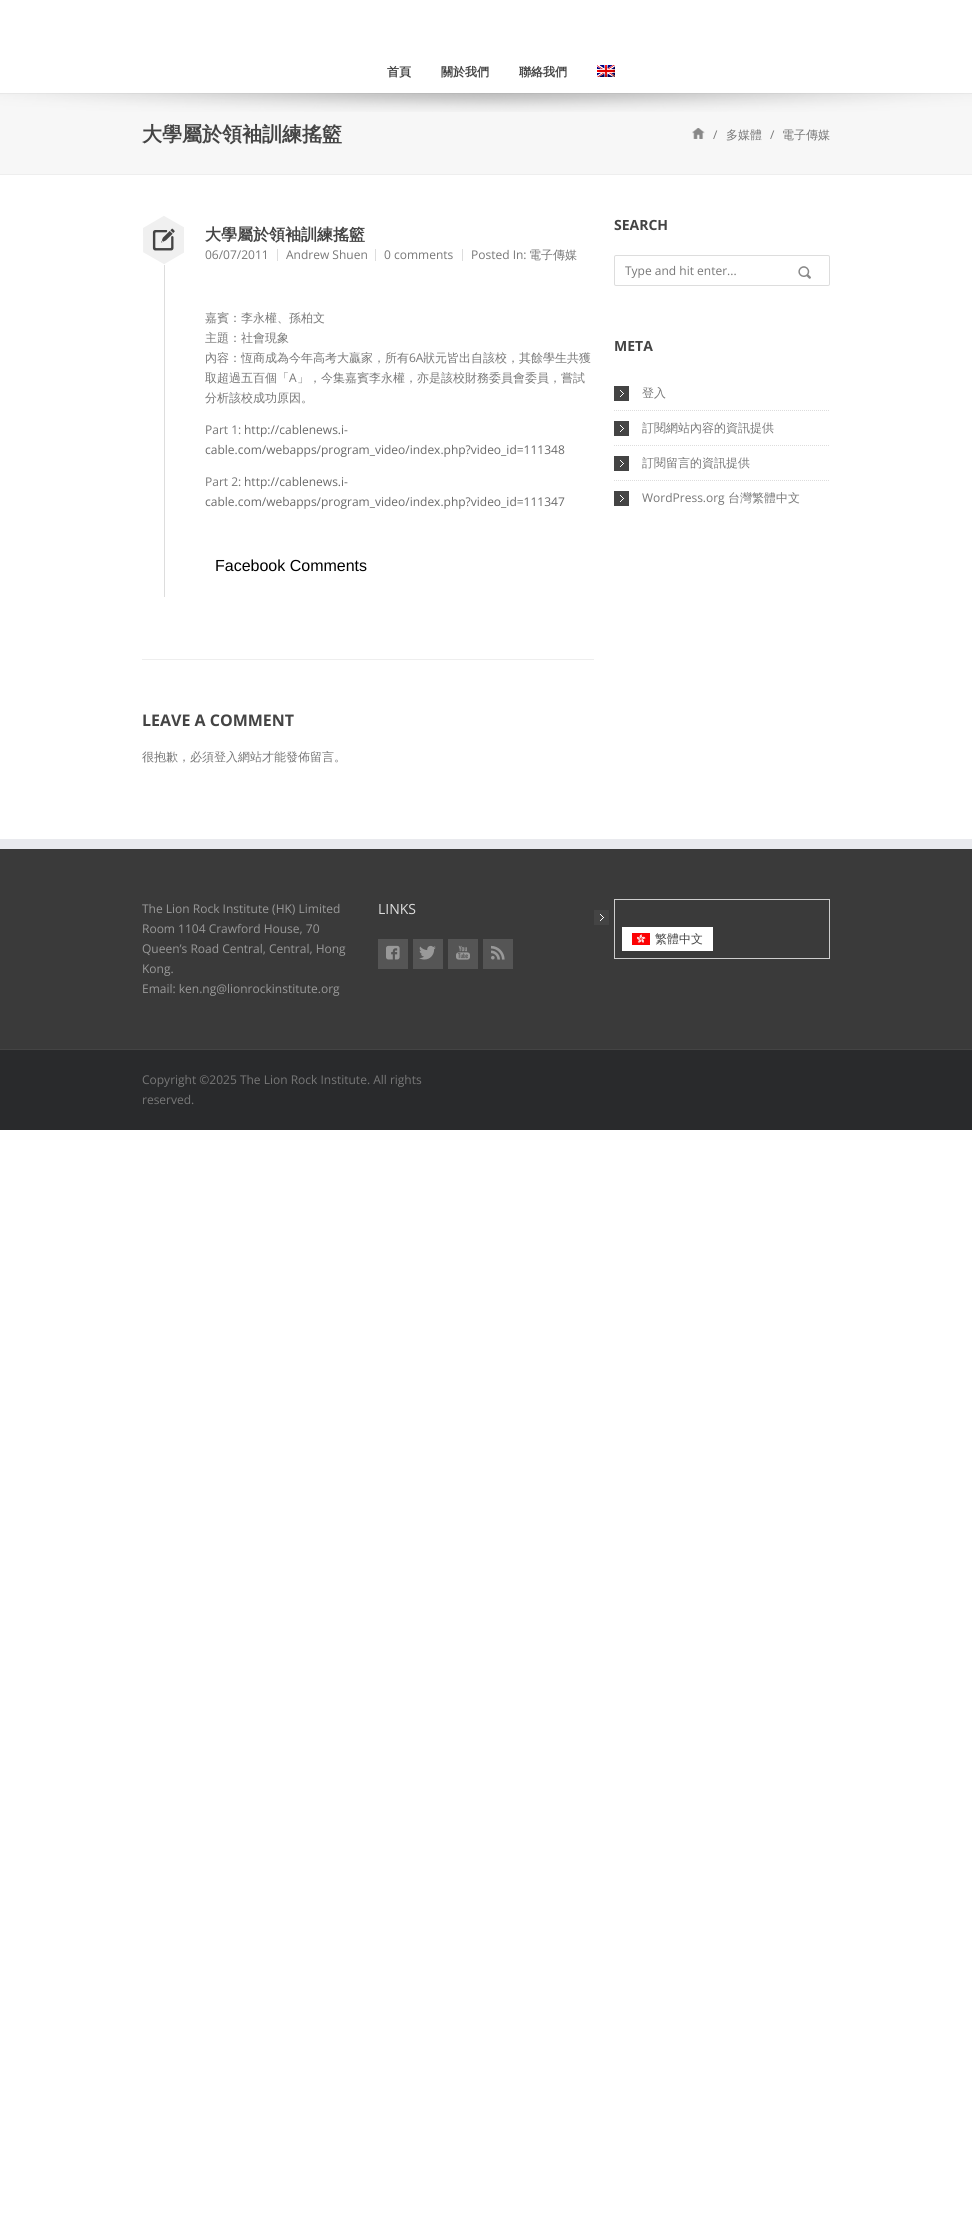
#include <cairo.h>
#include <math.h>
#include <stddef.h>

static cairo_t *ctx;

static void use_color(int r, int g, int b) {
    cairo_set_source_rgb(ctx, r / 255.0, g / 255.0, b / 255.0);
}

static void round_rect(double x, double y, double w, double h, double r) {
    cairo_new_sub_path(ctx);
    cairo_arc(ctx, x + w - r, y + h - r, r, 0, M_PI / 2);
    cairo_arc(ctx, x + r, y + h - r, r, M_PI / 2, M_PI);
    cairo_arc(ctx, x + r, y + r, r, M_PI, 1.5 * M_PI);
    cairo_arc(ctx, x + w - r, y + r, r, 1.5 * M_PI, 2 * M_PI);
    cairo_close_path(ctx);
}

static void picture(const char *path, double x, double y, double w, double h) {
    cairo_surface_t *image = cairo_image_surface_create_from_png(path);
    cairo_save(ctx);
    cairo_set_source_surface(ctx, image, x, y);
    cairo_rectangle(ctx, x, y, w, h);
    cairo_fill(ctx);
    cairo_restore(ctx);
    cairo_surface_destroy(image);
}

int main(void) {
    cairo_surface_t *surface = cairo_image_surface_create(CAIRO_FORMAT_RGB24, 972, 2240);
    ctx = cairo_create(surface);
    cairo_font_options_t *options = cairo_font_options_create();
    cairo_font_options_set_hint_metrics(options, CAIRO_HINT_METRICS_OFF);
    cairo_font_options_set_hint_style(options, CAIRO_HINT_STYLE_NONE);
    cairo_set_font_options(ctx, options);
    cairo_set_miter_limit(ctx, 4);
    use_color(255, 255, 255);
    cairo_paint(ctx);
    cairo_select_font_face(ctx, "WenQuanYi Zen Hei", CAIRO_FONT_SLANT_NORMAL, CAIRO_FONT_WEIGHT_BOLD);
    cairo_set_font_size(ctx, 12);
    use_color(68, 68, 68);
    cairo_move_to(ctx, 387, 76);
    cairo_show_text(ctx, "首頁");
    cairo_move_to(ctx, 441, 76);
    cairo_show_text(ctx, "關於我們");
    cairo_move_to(ctx, 519, 76);
    cairo_show_text(ctx, "聯絡我們");
    picture("img1.png", 597, 65, 18, 12);
    use_color(247, 247, 247);
    cairo_rectangle(ctx, 0, 94, 972, 80);
    cairo_fill(ctx);
    use_color(238, 238, 238);
    cairo_rectangle(ctx, 0, 93, 972, 1);
    cairo_fill(ctx);
    picture("img2.png", 0, 93, 972, 19);
    cairo_rectangle(ctx, 0, 174, 972, 1);
    cairo_fill(ctx);
    cairo_set_font_size(ctx, 20);
    use_color(68, 68, 68);
    cairo_move_to(ctx, 142, 141);
    cairo_show_text(ctx, "大學屬於領袖訓練搖籃");
    picture("img3.png", 692, 128, 13, 11);
    cairo_select_font_face(ctx, "Open Sans", CAIRO_FONT_SLANT_NORMAL, CAIRO_FONT_WEIGHT_NORMAL);
    cairo_set_font_size(ctx, 12);
    use_color(119, 119, 119);
    cairo_move_to(ctx, 713, 139);
    cairo_show_text(ctx, "/");
    cairo_select_font_face(ctx, "WenQuanYi Zen Hei Medium", CAIRO_FONT_SLANT_NORMAL, CAIRO_FONT_WEIGHT_NORMAL);
    cairo_move_to(ctx, 726, 139);
    cairo_show_text(ctx, "多媒體");
    cairo_select_font_face(ctx, "Open Sans", CAIRO_FONT_SLANT_NORMAL, CAIRO_FONT_WEIGHT_NORMAL);
    cairo_move_to(ctx, 770, 139);
    cairo_show_text(ctx, "/");
    cairo_select_font_face(ctx, "WenQuanYi Zen Hei Medium", CAIRO_FONT_SLANT_NORMAL, CAIRO_FONT_WEIGHT_NORMAL);
    cairo_move_to(ctx, 782, 139);
    cairo_show_text(ctx, "電子傳媒");
    use_color(238, 238, 238);
    cairo_rectangle(ctx, 142, 659, 452, 1);
    cairo_fill(ctx);
    use_color(221, 221, 221);
    cairo_rectangle(ctx, 164, 265, 1, 332);
    cairo_fill(ctx);
    use_color(240, 240, 240);
    cairo_rectangle(ctx, 143, 215, 41, 50);
    cairo_fill(ctx);
    picture("img4.png", 143, 215, 41, 50);
    picture("img5.png", 152, 228, 23, 23);
    cairo_select_font_face(ctx, "WenQuanYi Zen Hei", CAIRO_FONT_SLANT_NORMAL, CAIRO_FONT_WEIGHT_BOLD);
    cairo_set_font_size(ctx, 16);
    use_color(68, 68, 68);
    cairo_move_to(ctx, 205, 240);
    cairo_show_text(ctx, "大學屬於領袖訓練搖籃");
    use_color(221, 221, 221);
    cairo_rectangle(ctx, 277, 249, 1, 12);
    cairo_fill(ctx);
    cairo_select_font_face(ctx, "Open Sans", CAIRO_FONT_SLANT_NORMAL, CAIRO_FONT_WEIGHT_NORMAL);
    cairo_set_font_size(ctx, 12);
    use_color(119, 119, 119);
    cairo_move_to(ctx, 205, 259);
    cairo_show_text(ctx, "06/07/2011");
    use_color(221, 221, 221);
    cairo_rectangle(ctx, 375, 249, 1, 12);
    cairo_fill(ctx);
    use_color(119, 119, 119);
    cairo_move_to(ctx, 286, 259);
    cairo_show_text(ctx, "Andrew Shuen");
    use_color(221, 221, 221);
    cairo_rectangle(ctx, 462, 249, 1, 12);
    cairo_fill(ctx);
    use_color(119, 119, 119);
    cairo_move_to(ctx, 384, 259);
    cairo_show_text(ctx, "0 comments");
    cairo_move_to(ctx, 471, 259);
    cairo_show_text(ctx, "Posted In:");
    cairo_select_font_face(ctx, "WenQuanYi Zen Hei Medium", CAIRO_FONT_SLANT_NORMAL, CAIRO_FONT_WEIGHT_NORMAL);
    cairo_move_to(ctx, 529, 259);
    cairo_show_text(ctx, "電子傳媒");
    cairo_move_to(ctx, 205, 322);
    cairo_show_text(ctx, "嘉賓：李永權、孫柏文");
    cairo_move_to(ctx, 205, 342);
    cairo_show_text(ctx, "主題：社會現象");
    cairo_move_to(ctx, 205, 362);
    cairo_show_text(ctx, "內容：恆商成為今年高考大贏家，所有");
    cairo_select_font_face(ctx, "Open Sans", CAIRO_FONT_SLANT_NORMAL, CAIRO_FONT_WEIGHT_NORMAL);
    cairo_move_to(ctx, 409, 362);
    cairo_show_text(ctx, "6A");
    cairo_select_font_face(ctx, "WenQuanYi Zen Hei Medium", CAIRO_FONT_SLANT_NORMAL, CAIRO_FONT_WEIGHT_NORMAL);
    cairo_move_to(ctx, 423, 362);
    cairo_show_text(ctx, "狀元皆出自該校，其餘學生共獲");
    cairo_move_to(ctx, 205, 382);
    cairo_show_text(ctx, "取超過五百個「");
    cairo_select_font_face(ctx, "Open Sans", CAIRO_FONT_SLANT_NORMAL, CAIRO_FONT_WEIGHT_NORMAL);
    cairo_move_to(ctx, 289, 382);
    cairo_show_text(ctx, "A");
    cairo_select_font_face(ctx, "WenQuanYi Zen Hei Medium", CAIRO_FONT_SLANT_NORMAL, CAIRO_FONT_WEIGHT_NORMAL);
    cairo_move_to(ctx, 297, 382);
    cairo_show_text(ctx, "」，今集嘉賓李永權，亦是該校財務委員會委員，嘗試");
    cairo_move_to(ctx, 205, 402);
    cairo_show_text(ctx, "分析該校成功原因。");
    cairo_select_font_face(ctx, "Open Sans", CAIRO_FONT_SLANT_NORMAL, CAIRO_FONT_WEIGHT_NORMAL);
    cairo_move_to(ctx, 205, 434);
    cairo_show_text(ctx, "Part 1:");
    use_color(105, 105, 105);
    cairo_move_to(ctx, 244, 434);
    cairo_show_text(ctx, "http://cablenews.i-");
    cairo_move_to(ctx, 205, 454);
    cairo_show_text(ctx, "cable.com/webapps/program_video/index.php?video_id=111348");
    use_color(119, 119, 119);
    cairo_move_to(ctx, 205, 486);
    cairo_show_text(ctx, "Part 2:");
    use_color(105, 105, 105);
    cairo_move_to(ctx, 244, 486);
    cairo_show_text(ctx, "http://cablenews.i-");
    cairo_move_to(ctx, 205, 506);
    cairo_show_text(ctx, "cable.com/webapps/program_video/index.php?video_id=111347");
    cairo_select_font_face(ctx, "Liberation Sans", CAIRO_FONT_SLANT_NORMAL, CAIRO_FONT_WEIGHT_NORMAL);
    cairo_set_font_size(ctx, 16);
    use_color(0, 0, 0);
    cairo_move_to(ctx, 215, 571);
    cairo_show_text(ctx, "Facebook Comments");
    cairo_select_font_face(ctx, "Open Sans", CAIRO_FONT_SLANT_NORMAL, CAIRO_FONT_WEIGHT_BOLD);
    use_color(68, 68, 68);
    cairo_move_to(ctx, 142, 726);
    cairo_show_text(ctx, "LEAVE A COMMENT");
    cairo_select_font_face(ctx, "WenQuanYi Zen Hei Medium", CAIRO_FONT_SLANT_NORMAL, CAIRO_FONT_WEIGHT_NORMAL);
    cairo_set_font_size(ctx, 12);
    use_color(119, 119, 119);
    cairo_move_to(ctx, 142, 761);
    cairo_show_text(ctx, "很抱歉，必須登入網站才能發佈留言。");
    cairo_select_font_face(ctx, "Open Sans", CAIRO_FONT_SLANT_NORMAL, CAIRO_FONT_WEIGHT_BOLD);
    cairo_set_font_size(ctx, 14);
    use_color(68, 68, 68);
    cairo_move_to(ctx, 614, 230);
    cairo_show_text(ctx, "SEARCH");
    round_rect(614.5, 255.5, 215, 30, 1.5);
    use_color(221, 221, 221);
    cairo_set_line_width(ctx, 1);
    cairo_stroke(ctx);
    cairo_select_font_face(ctx, "Open Sans", CAIRO_FONT_SLANT_NORMAL, CAIRO_FONT_WEIGHT_NORMAL);
    cairo_set_font_size(ctx, 12);
    use_color(119, 119, 119);
    cairo_move_to(ctx, 625, 275);
    cairo_show_text(ctx, "Type and hit enter...");
    picture("img6.png", 798, 266, 13, 13);
    cairo_select_font_face(ctx, "Open Sans", CAIRO_FONT_SLANT_NORMAL, CAIRO_FONT_WEIGHT_BOLD);
    cairo_set_font_size(ctx, 14);
    use_color(68, 68, 68);
    cairo_move_to(ctx, 614, 351);
    cairo_show_text(ctx, "META");
    cairo_new_path(ctx);
    cairo_move_to(ctx, 614, 410.5);
    cairo_line_to(ctx, 830, 410.5);
    use_color(221, 221, 221);
    cairo_set_dash(ctx, (double[]){1, 1}, 2, 0);
    cairo_stroke(ctx);
    use_color(68, 68, 68);
    cairo_rectangle(ctx, 614, 386, 15, 15);
    cairo_fill(ctx);
    picture("img7.png", 620, 390, 4, 7);
    cairo_select_font_face(ctx, "WenQuanYi Zen Hei Medium", CAIRO_FONT_SLANT_NORMAL, CAIRO_FONT_WEIGHT_NORMAL);
    cairo_set_font_size(ctx, 12);
    use_color(119, 119, 119);
    cairo_move_to(ctx, 642, 397);
    cairo_show_text(ctx, "登入");
    cairo_new_path(ctx);
    cairo_move_to(ctx, 614, 445.5);
    cairo_line_to(ctx, 830, 445.5);
    use_color(221, 221, 221);
    cairo_stroke(ctx);
    use_color(68, 68, 68);
    cairo_rectangle(ctx, 614, 421, 15, 15);
    cairo_fill(ctx);
    picture("img7.png", 620, 425, 4, 7);
    use_color(119, 119, 119);
    cairo_move_to(ctx, 642, 432);
    cairo_show_text(ctx, "訂閱網站內容的資訊提供");
    cairo_new_path(ctx);
    cairo_move_to(ctx, 614, 480.5);
    cairo_line_to(ctx, 830, 480.5);
    use_color(221, 221, 221);
    cairo_stroke(ctx);
    use_color(68, 68, 68);
    cairo_rectangle(ctx, 614, 456, 15, 15);
    cairo_fill(ctx);
    picture("img7.png", 620, 460, 4, 7);
    use_color(119, 119, 119);
    cairo_move_to(ctx, 642, 467);
    cairo_show_text(ctx, "訂閱留言的資訊提供");
    use_color(68, 68, 68);
    cairo_rectangle(ctx, 614, 491, 15, 15);
    cairo_fill(ctx);
    picture("img7.png", 620, 495, 4, 7);
    cairo_select_font_face(ctx, "Open Sans", CAIRO_FONT_SLANT_NORMAL, CAIRO_FONT_WEIGHT_NORMAL);
    use_color(119, 119, 119);
    cairo_move_to(ctx, 642, 502);
    cairo_show_text(ctx, "WordPress.org");
    cairo_select_font_face(ctx, "WenQuanYi Zen Hei Medium", CAIRO_FONT_SLANT_NORMAL, CAIRO_FONT_WEIGHT_NORMAL);
    cairo_move_to(ctx, 728, 502);
    cairo_show_text(ctx, "台灣繁體中文");
    use_color(58, 58, 58);
    cairo_rectangle(ctx, 0, 849, 972, 200);
    cairo_fill(ctx);
    use_color(233, 234, 238);
    cairo_rectangle(ctx, 0, 839, 972, 10);
    cairo_fill(ctx);
    cairo_select_font_face(ctx, "Open Sans", CAIRO_FONT_SLANT_NORMAL, CAIRO_FONT_WEIGHT_NORMAL);
    use_color(153, 153, 153);
    cairo_move_to(ctx, 142, 913);
    cairo_show_text(ctx, "The Lion Rock Institute (HK) Limited");
    cairo_move_to(ctx, 142, 933);
    cairo_show_text(ctx, "Room 1104 Crawford House, 70");
    cairo_move_to(ctx, 142, 953);
    cairo_show_text(ctx, "Queen’s Road Central, Central, Hong");
    cairo_move_to(ctx, 142, 973);
    cairo_show_text(ctx, "Kong.");
    cairo_move_to(ctx, 142, 993);
    cairo_show_text(ctx, "Email: ken.ng@lionrockinstitute.org");
    cairo_set_font_size(ctx, 14);
    use_color(221, 221, 221);
    cairo_move_to(ctx, 378, 914);
    cairo_show_text(ctx, "LINKS");
    use_color(85, 85, 85);
    cairo_rectangle(ctx, 378, 939, 30, 30);
    cairo_fill(ctx);
    cairo_select_font_face(ctx, "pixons", CAIRO_FONT_SLANT_NORMAL, CAIRO_FONT_WEIGHT_NORMAL);
    use_color(153, 153, 153);
    cairo_move_to(ctx, 386, 959);
    cairo_show_text(ctx, "1");
    use_color(85, 85, 85);
    cairo_rectangle(ctx, 413, 939, 30, 30);
    cairo_fill(ctx);
    picture("img8.png", 419, 945, 17, 15);
    cairo_rectangle(ctx, 448, 939, 30, 30);
    cairo_fill(ctx);
    picture("img9.png", 456, 945, 14, 15);
    cairo_rectangle(ctx, 483, 939, 30, 30);
    cairo_fill(ctx);
    picture("img10.png", 491, 945, 14, 15);
    cairo_rectangle(ctx, 614.5, 899.5, 215, 59);
    use_color(205, 205, 205);
    cairo_set_dash(ctx, NULL, 0, 0);
    cairo_stroke(ctx);
    use_color(68, 68, 68);
    cairo_rectangle(ctx, 594, 910, 15, 15);
    cairo_fill(ctx);
    picture("img7.png", 600, 914, 4, 7);
    use_color(255, 255, 255);
    cairo_rectangle(ctx, 622, 927, 91, 24);
    cairo_fill(ctx);
    picture("img11.png", 632, 933, 18, 12);
    cairo_select_font_face(ctx, "WenQuanYi Zen Hei Medium", CAIRO_FONT_SLANT_NORMAL, CAIRO_FONT_WEIGHT_NORMAL);
    cairo_set_font_size(ctx, 12);
    use_color(68, 68, 68);
    cairo_move_to(ctx, 655, 943);
    cairo_show_text(ctx, "繁體中文");
    use_color(41, 42, 44);
    cairo_rectangle(ctx, 0, 1050, 972, 80);
    cairo_fill(ctx);
    use_color(68, 68, 68);
    cairo_rectangle(ctx, 0, 1049, 972, 1);
    cairo_fill(ctx);
    cairo_select_font_face(ctx, "Open Sans", CAIRO_FONT_SLANT_NORMAL, CAIRO_FONT_WEIGHT_NORMAL);
    use_color(119, 119, 119);
    cairo_move_to(ctx, 142, 1084);
    cairo_show_text(ctx, "Copyright ©2025 The Lion Rock Institute. All rights");
    cairo_move_to(ctx, 142, 1104);
    cairo_show_text(ctx, "reserved.");
    cairo_surface_write_to_png(surface, "result.png");
    cairo_font_options_destroy(options);
    cairo_destroy(ctx);
    cairo_surface_destroy(surface);
    return 0;
}
